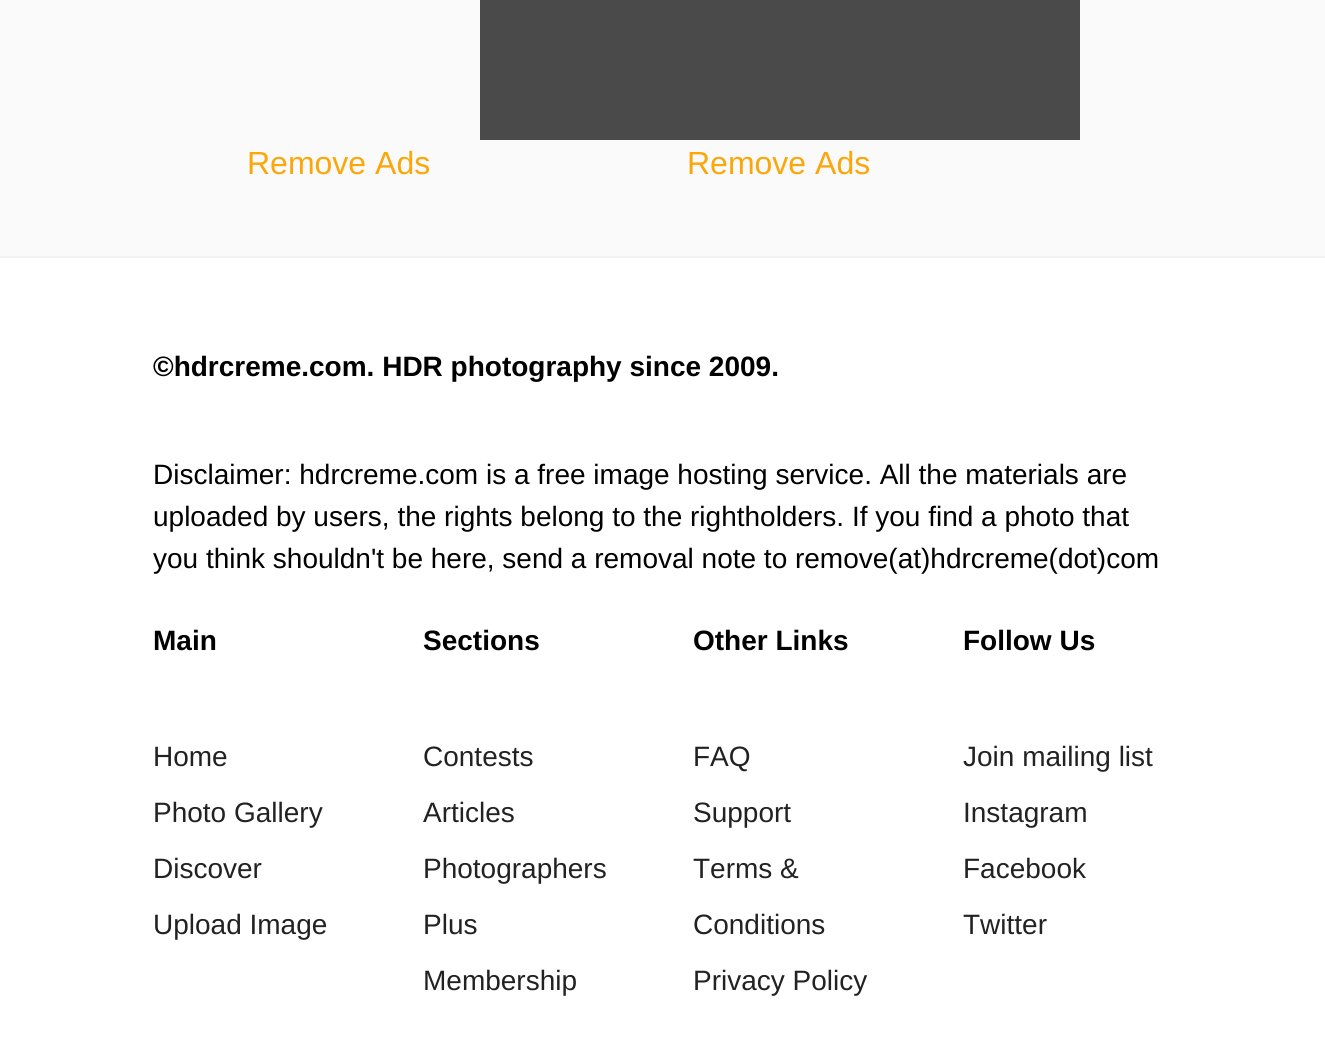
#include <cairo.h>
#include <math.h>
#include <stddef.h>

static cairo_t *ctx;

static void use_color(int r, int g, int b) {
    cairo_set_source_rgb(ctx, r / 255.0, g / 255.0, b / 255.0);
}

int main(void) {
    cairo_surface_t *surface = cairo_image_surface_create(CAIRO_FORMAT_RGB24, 1325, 1040);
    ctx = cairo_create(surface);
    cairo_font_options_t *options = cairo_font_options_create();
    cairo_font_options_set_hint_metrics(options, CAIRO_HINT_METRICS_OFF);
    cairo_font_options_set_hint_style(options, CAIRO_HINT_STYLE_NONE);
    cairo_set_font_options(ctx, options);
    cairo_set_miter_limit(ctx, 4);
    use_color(250, 250, 250);
    cairo_paint(ctx);
    cairo_select_font_face(ctx, "Liberation Sans", CAIRO_FONT_SLANT_NORMAL, CAIRO_FONT_WEIGHT_NORMAL);
    cairo_set_font_size(ctx, 32);
    use_color(252, 167, 9);
    cairo_move_to(ctx, 247, 174);
    cairo_show_text(ctx, "Remove Ads");
    use_color(74, 74, 74);
    cairo_rectangle(ctx, 480, 0, 600, 140);
    cairo_fill(ctx);
    use_color(252, 167, 9);
    cairo_move_to(ctx, 687, 174);
    cairo_show_text(ctx, "Remove Ads");
    use_color(255, 255, 255);
    cairo_rectangle(ctx, 0, 258, 1325, 782);
    cairo_fill(ctx);
    use_color(242, 242, 242);
    cairo_rectangle(ctx, 0, 256, 1325, 2);
    cairo_fill(ctx);
    cairo_select_font_face(ctx, "Liberation Sans", CAIRO_FONT_SLANT_NORMAL, CAIRO_FONT_WEIGHT_BOLD);
    cairo_set_font_size(ctx, 28);
    use_color(0, 0, 0);
    cairo_move_to(ctx, 153, 376);
    cairo_show_text(ctx, "©hdrcreme.com. HDR photography since 2009.");
    cairo_select_font_face(ctx, "Liberation Sans", CAIRO_FONT_SLANT_NORMAL, CAIRO_FONT_WEIGHT_NORMAL);
    cairo_move_to(ctx, 153, 484);
    cairo_show_text(ctx, "Disclaimer: hdrcreme.com is a free image hosting service. All the materials are");
    cairo_move_to(ctx, 153, 526);
    cairo_show_text(ctx, "uploaded by users, the rights belong to the rightholders. If you find a photo that");
    cairo_move_to(ctx, 153, 568);
    cairo_show_text(ctx, "you think shouldn't be here, send a removal note to remove(at)hdrcreme(dot)com");
    cairo_select_font_face(ctx, "Liberation Sans", CAIRO_FONT_SLANT_NORMAL, CAIRO_FONT_WEIGHT_BOLD);
    cairo_move_to(ctx, 153, 650);
    cairo_show_text(ctx, "Main");
    cairo_select_font_face(ctx, "Liberation Sans", CAIRO_FONT_SLANT_NORMAL, CAIRO_FONT_WEIGHT_NORMAL);
    use_color(34, 34, 34);
    cairo_move_to(ctx, 153, 766);
    cairo_show_text(ctx, "Home");
    cairo_move_to(ctx, 153, 822);
    cairo_show_text(ctx, "Photo Gallery");
    cairo_move_to(ctx, 153, 878);
    cairo_show_text(ctx, "Discover");
    cairo_move_to(ctx, 153, 934);
    cairo_show_text(ctx, "Upload Image");
    cairo_select_font_face(ctx, "Liberation Sans", CAIRO_FONT_SLANT_NORMAL, CAIRO_FONT_WEIGHT_BOLD);
    use_color(0, 0, 0);
    cairo_move_to(ctx, 423, 650);
    cairo_show_text(ctx, "Sections");
    cairo_select_font_face(ctx, "Liberation Sans", CAIRO_FONT_SLANT_NORMAL, CAIRO_FONT_WEIGHT_NORMAL);
    use_color(34, 34, 34);
    cairo_move_to(ctx, 423, 766);
    cairo_show_text(ctx, "Contests");
    cairo_move_to(ctx, 423, 822);
    cairo_show_text(ctx, "Articles");
    cairo_move_to(ctx, 423, 878);
    cairo_show_text(ctx, "Photographers");
    cairo_move_to(ctx, 423, 934);
    cairo_show_text(ctx, "Plus");
    cairo_move_to(ctx, 423, 990);
    cairo_show_text(ctx, "Membership");
    cairo_select_font_face(ctx, "Liberation Sans", CAIRO_FONT_SLANT_NORMAL, CAIRO_FONT_WEIGHT_BOLD);
    use_color(0, 0, 0);
    cairo_move_to(ctx, 693, 650);
    cairo_show_text(ctx, "Other Links");
    cairo_select_font_face(ctx, "Liberation Sans", CAIRO_FONT_SLANT_NORMAL, CAIRO_FONT_WEIGHT_NORMAL);
    use_color(34, 34, 34);
    cairo_move_to(ctx, 693, 766);
    cairo_show_text(ctx, "FAQ");
    cairo_move_to(ctx, 693, 822);
    cairo_show_text(ctx, "Support");
    cairo_move_to(ctx, 693, 878);
    cairo_show_text(ctx, "Terms &");
    cairo_move_to(ctx, 693, 934);
    cairo_show_text(ctx, "Conditions");
    cairo_move_to(ctx, 693, 990);
    cairo_show_text(ctx, "Privacy Policy");
    cairo_select_font_face(ctx, "Liberation Sans", CAIRO_FONT_SLANT_NORMAL, CAIRO_FONT_WEIGHT_BOLD);
    use_color(0, 0, 0);
    cairo_move_to(ctx, 963, 650);
    cairo_show_text(ctx, "Follow Us");
    cairo_select_font_face(ctx, "Liberation Sans", CAIRO_FONT_SLANT_NORMAL, CAIRO_FONT_WEIGHT_NORMAL);
    use_color(34, 34, 34);
    cairo_move_to(ctx, 963, 766);
    cairo_show_text(ctx, "Join mailing list");
    cairo_move_to(ctx, 963, 822);
    cairo_show_text(ctx, "Instagram");
    cairo_move_to(ctx, 963, 878);
    cairo_show_text(ctx, "Facebook");
    cairo_move_to(ctx, 963, 934);
    cairo_show_text(ctx, "Twitter");
    cairo_surface_write_to_png(surface, "result.png");
    cairo_font_options_destroy(options);
    cairo_destroy(ctx);
    cairo_surface_destroy(surface);
    return 0;
}
